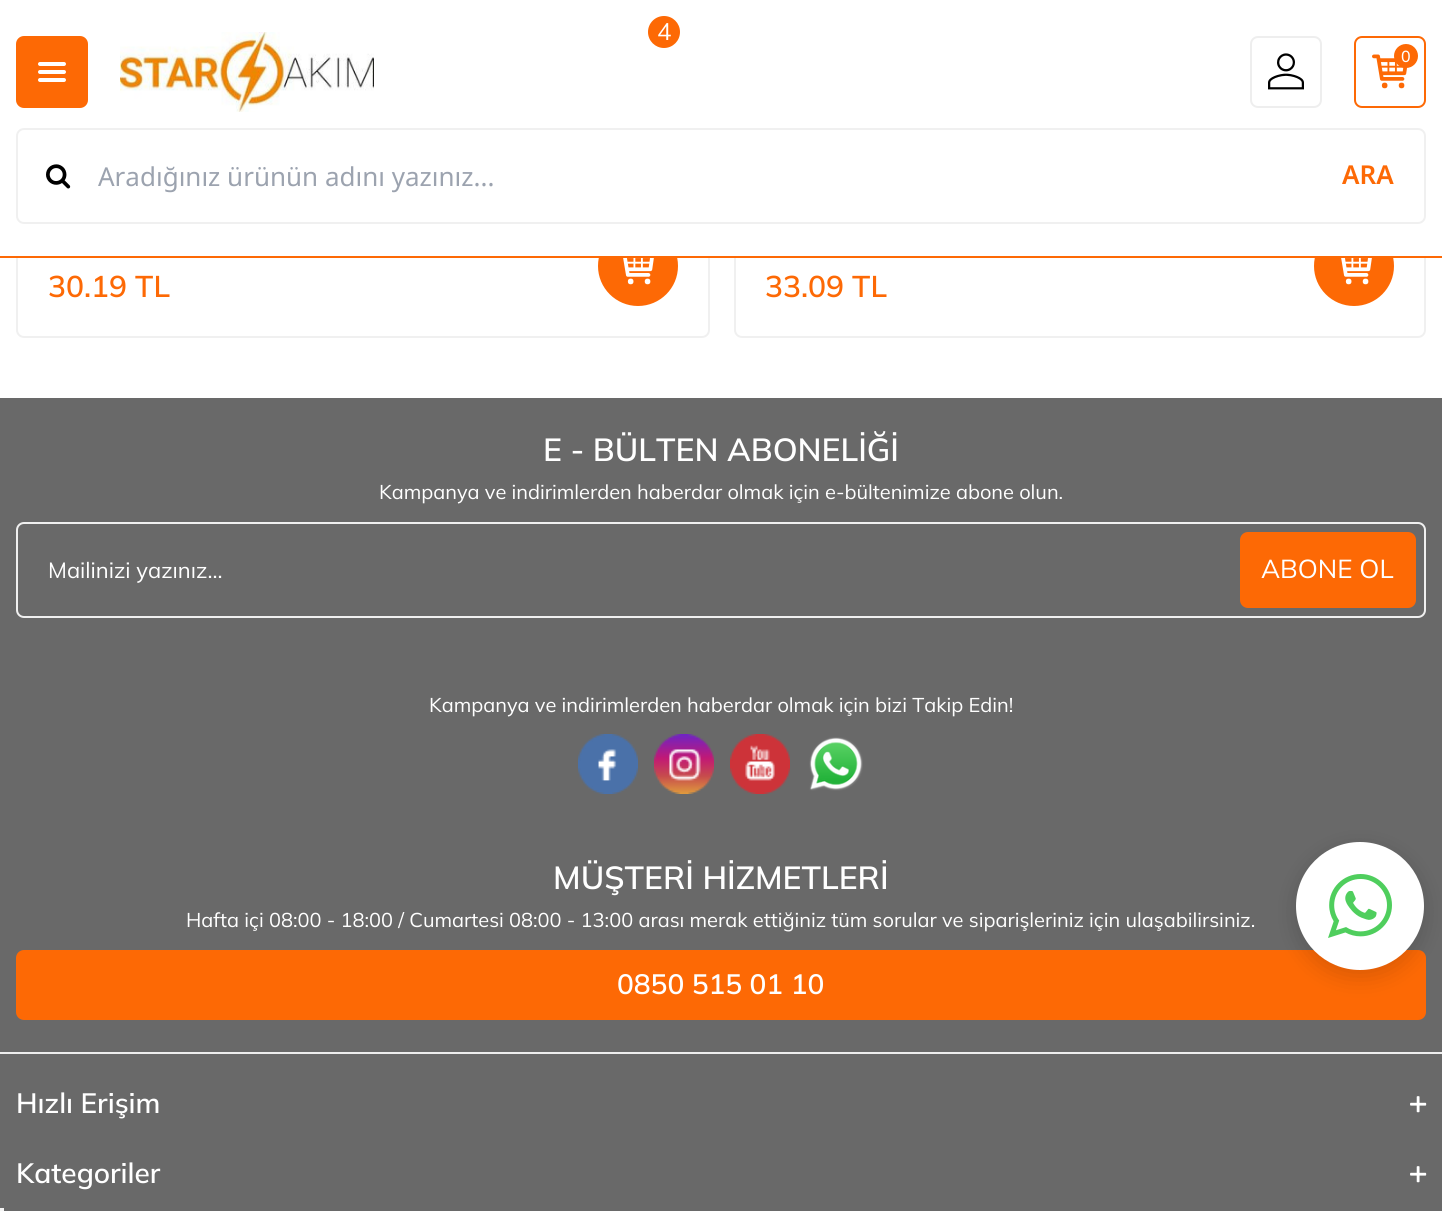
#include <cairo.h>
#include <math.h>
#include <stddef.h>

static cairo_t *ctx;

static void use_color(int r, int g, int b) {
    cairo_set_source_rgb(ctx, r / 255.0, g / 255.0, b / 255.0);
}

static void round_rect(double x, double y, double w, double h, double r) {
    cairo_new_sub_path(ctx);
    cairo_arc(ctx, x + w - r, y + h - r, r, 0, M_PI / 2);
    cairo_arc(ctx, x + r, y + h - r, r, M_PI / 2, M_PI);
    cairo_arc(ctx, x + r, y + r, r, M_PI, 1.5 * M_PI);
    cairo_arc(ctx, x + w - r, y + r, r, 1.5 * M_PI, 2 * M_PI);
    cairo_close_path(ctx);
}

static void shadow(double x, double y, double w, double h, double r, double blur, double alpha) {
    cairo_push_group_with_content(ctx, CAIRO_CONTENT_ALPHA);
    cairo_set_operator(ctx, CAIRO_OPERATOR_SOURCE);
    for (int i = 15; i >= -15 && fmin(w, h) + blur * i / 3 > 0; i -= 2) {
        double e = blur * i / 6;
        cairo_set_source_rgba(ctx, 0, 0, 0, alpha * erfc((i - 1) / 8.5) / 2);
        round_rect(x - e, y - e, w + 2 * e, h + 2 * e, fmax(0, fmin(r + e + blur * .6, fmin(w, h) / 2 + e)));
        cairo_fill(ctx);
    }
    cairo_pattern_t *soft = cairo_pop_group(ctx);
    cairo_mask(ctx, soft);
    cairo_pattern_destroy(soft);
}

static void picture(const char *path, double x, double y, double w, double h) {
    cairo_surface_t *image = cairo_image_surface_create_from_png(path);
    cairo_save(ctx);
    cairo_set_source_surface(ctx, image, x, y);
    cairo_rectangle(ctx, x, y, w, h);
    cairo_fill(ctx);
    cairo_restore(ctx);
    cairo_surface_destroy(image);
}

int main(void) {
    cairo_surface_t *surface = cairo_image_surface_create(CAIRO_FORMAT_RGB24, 1442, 1211);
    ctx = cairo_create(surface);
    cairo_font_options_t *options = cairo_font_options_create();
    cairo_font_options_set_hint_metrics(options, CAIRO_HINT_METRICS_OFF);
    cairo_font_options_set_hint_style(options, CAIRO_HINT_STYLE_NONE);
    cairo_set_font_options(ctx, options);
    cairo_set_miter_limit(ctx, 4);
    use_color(255, 255, 255);
    cairo_paint(ctx);
    round_rect(17, -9, 692, 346, 7);
    use_color(240, 240, 240);
    cairo_stroke(ctx);
    use_color(253, 105, 5);
    cairo_arc(ctx, 638, 266, 39, 0, 2 * M_PI);
    cairo_fill_preserve(ctx);
    cairo_stroke(ctx);
    round_rect(735, -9, 690, 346, 7);
    use_color(240, 240, 240);
    cairo_stroke(ctx);
    use_color(253, 105, 5);
    cairo_arc(ctx, 1354, 266, 39, 0, 2 * M_PI);
    cairo_fill_preserve(ctx);
    cairo_stroke(ctx);
    use_color(255, 255, 255);
    cairo_rectangle(ctx, 16, 0, 1410, 256);
    cairo_fill(ctx);
    use_color(253, 105, 5);
    cairo_rectangle(ctx, 0, 256, 1442, 2);
    cairo_fill(ctx);
    round_rect(16, 36, 72, 72, 8);
    cairo_fill(ctx);
    picture("img1.png", 38, 62, 28, 20);
    picture("img2.png", 120, 32, 254, 80);
    cairo_arc(ctx, 664, 32, 16, 0, 2 * M_PI);
    cairo_fill(ctx);
    cairo_select_font_face(ctx, "Mulish", CAIRO_FONT_SLANT_NORMAL, CAIRO_FONT_WEIGHT_NORMAL);
    cairo_set_font_size(ctx, 24);
    use_color(255, 255, 255);
    cairo_move_to(ctx, 657, 40);
    cairo_show_text(ctx, "4");
    round_rect(1251, 37, 70, 70, 7);
    use_color(238, 238, 238);
    cairo_stroke(ctx);
    picture("img3.png", 1268, 53, 36, 37);
    round_rect(1355, 37, 70, 70, 7);
    use_color(253, 105, 5);
    cairo_stroke(ctx);
    picture("img4.png", 1372, 54, 36, 35);
    cairo_arc(ctx, 1406, 56, 12, 0, 2 * M_PI);
    cairo_fill(ctx);
    cairo_select_font_face(ctx, "Mulish Medium", CAIRO_FONT_SLANT_NORMAL, CAIRO_FONT_WEIGHT_NORMAL);
    cairo_set_font_size(ctx, 16);
    use_color(255, 255, 255);
    cairo_move_to(ctx, 1401, 62);
    cairo_show_text(ctx, "0");
    round_rect(17, 129, 1408, 94, 7);
    use_color(240, 240, 240);
    cairo_stroke(ctx);
    picture("img5.png", 46, 164, 25, 25);
    cairo_select_font_face(ctx, "Noto Sans", CAIRO_FONT_SLANT_NORMAL, CAIRO_FONT_WEIGHT_NORMAL);
    cairo_set_font_size(ctx, 26);
    use_color(156, 163, 175);
    cairo_move_to(ctx, 98, 186);
    cairo_show_text(ctx, "Aradığınız ürünün adını yazınız...");
    cairo_select_font_face(ctx, "Noto Sans SemiBold", CAIRO_FONT_SLANT_NORMAL, CAIRO_FONT_WEIGHT_NORMAL);
    use_color(253, 105, 5);
    cairo_move_to(ctx, 1342, 184);
    cairo_show_text(ctx, "ARA");
    cairo_select_font_face(ctx, "Mulish SemiBold", CAIRO_FONT_SLANT_NORMAL, CAIRO_FONT_WEIGHT_NORMAL);
    cairo_set_font_size(ctx, 30);
    cairo_move_to(ctx, 48, 297);
    cairo_show_text(ctx, "30.19 TL");
    picture("img6.png", 623, 258, 31, 27);
    cairo_move_to(ctx, 765, 297);
    cairo_show_text(ctx, "33.09 TL");
    picture("img6.png", 1341, 258, 31, 27);
    use_color(105, 105, 105);
    cairo_rectangle(ctx, 0, 398, 1442, 813);
    cairo_fill(ctx);
    use_color(238, 238, 238);
    cairo_rectangle(ctx, 0, 1052, 1442, 2);
    cairo_fill(ctx);
    cairo_set_font_size(ctx, 32);
    use_color(255, 255, 255);
    cairo_move_to(ctx, 543, 461);
    cairo_show_text(ctx, "E - BÜLTEN ABONELİĞİ");
    cairo_select_font_face(ctx, "Mulish", CAIRO_FONT_SLANT_NORMAL, CAIRO_FONT_WEIGHT_NORMAL);
    cairo_set_font_size(ctx, 20);
    cairo_move_to(ctx, 379, 499);
    cairo_show_text(ctx, "Kampanya ve indirimlerden haberdar olmak için e-bültenimize abone olun.");
    round_rect(17, 523, 1408, 94, 7);
    use_color(240, 240, 240);
    cairo_stroke(ctx);
    cairo_set_font_size(ctx, 22);
    use_color(255, 255, 255);
    cairo_move_to(ctx, 48, 578);
    cairo_show_text(ctx, "Mailinizi yazınız...");
    use_color(253, 105, 5);
    round_rect(1241, 533, 174, 74, 7);
    cairo_fill_preserve(ctx);
    cairo_stroke(ctx);
    cairo_set_font_size(ctx, 26);
    use_color(255, 255, 255);
    cairo_move_to(ctx, 1261, 578);
    cairo_show_text(ctx, "ABONE OL");
    cairo_set_font_size(ctx, 20);
    cairo_move_to(ctx, 429, 712);
    cairo_show_text(ctx, "Kampanya ve indirimlerden haberdar olmak için bizi Takip Edin!");
    picture("img7.png", 578, 734, 60, 60);
    picture("img8.png", 654, 734, 60, 60);
    picture("img9.png", 730, 734, 60, 60);
    picture("img10.png", 809, 737, 54, 54);
    cairo_select_font_face(ctx, "Mulish SemiBold", CAIRO_FONT_SLANT_NORMAL, CAIRO_FONT_WEIGHT_NORMAL);
    cairo_set_font_size(ctx, 32);
    cairo_move_to(ctx, 553, 889);
    cairo_show_text(ctx, "MÜŞTERİ HİZMETLERİ");
    cairo_select_font_face(ctx, "Mulish", CAIRO_FONT_SLANT_NORMAL, CAIRO_FONT_WEIGHT_NORMAL);
    cairo_set_font_size(ctx, 20);
    cairo_move_to(ctx, 186, 927);
    cairo_show_text(ctx, "Hafta içi 08:00 - 18:00 / Cumartesi 08:00 - 13:00 arası merak ettiğiniz tüm sorular ve siparişleriniz için ulaşabilirsiniz.");
    use_color(253, 105, 5);
    round_rect(16, 950, 1410, 70, 8);
    cairo_fill(ctx);
    cairo_select_font_face(ctx, "Mulish SemiBold", CAIRO_FONT_SLANT_NORMAL, CAIRO_FONT_WEIGHT_NORMAL);
    cairo_set_font_size(ctx, 28);
    use_color(255, 255, 255);
    cairo_move_to(ctx, 617, 994);
    cairo_show_text(ctx, "0850 515 01 10");
    cairo_move_to(ctx, 16, 1113);
    cairo_show_text(ctx, "Hızlı Erişim");
    picture("img11.png", 1410, 1096, 17, 17);
    cairo_move_to(ctx, 16, 1183);
    cairo_show_text(ctx, "Kategoriler");
    picture("img11.png", 1410, 1166, 17, 17);
    use_color(0, 0, 0);
    shadow(1296, 848, 128, 128, 64, 12, 0.15);
    use_color(255, 255, 255);
    cairo_arc(ctx, 1360, 906, 64, 0, 2 * M_PI);
    cairo_fill(ctx);
    picture("img12.png", 1328, 874, 64, 64);
    use_color(245, 245, 245);
    cairo_rectangle(ctx, 0, 1208, 4, 3);
    cairo_fill(ctx);
    cairo_surface_write_to_png(surface, "result.png");
    cairo_font_options_destroy(options);
    cairo_destroy(ctx);
    cairo_surface_destroy(surface);
    return 0;
}
